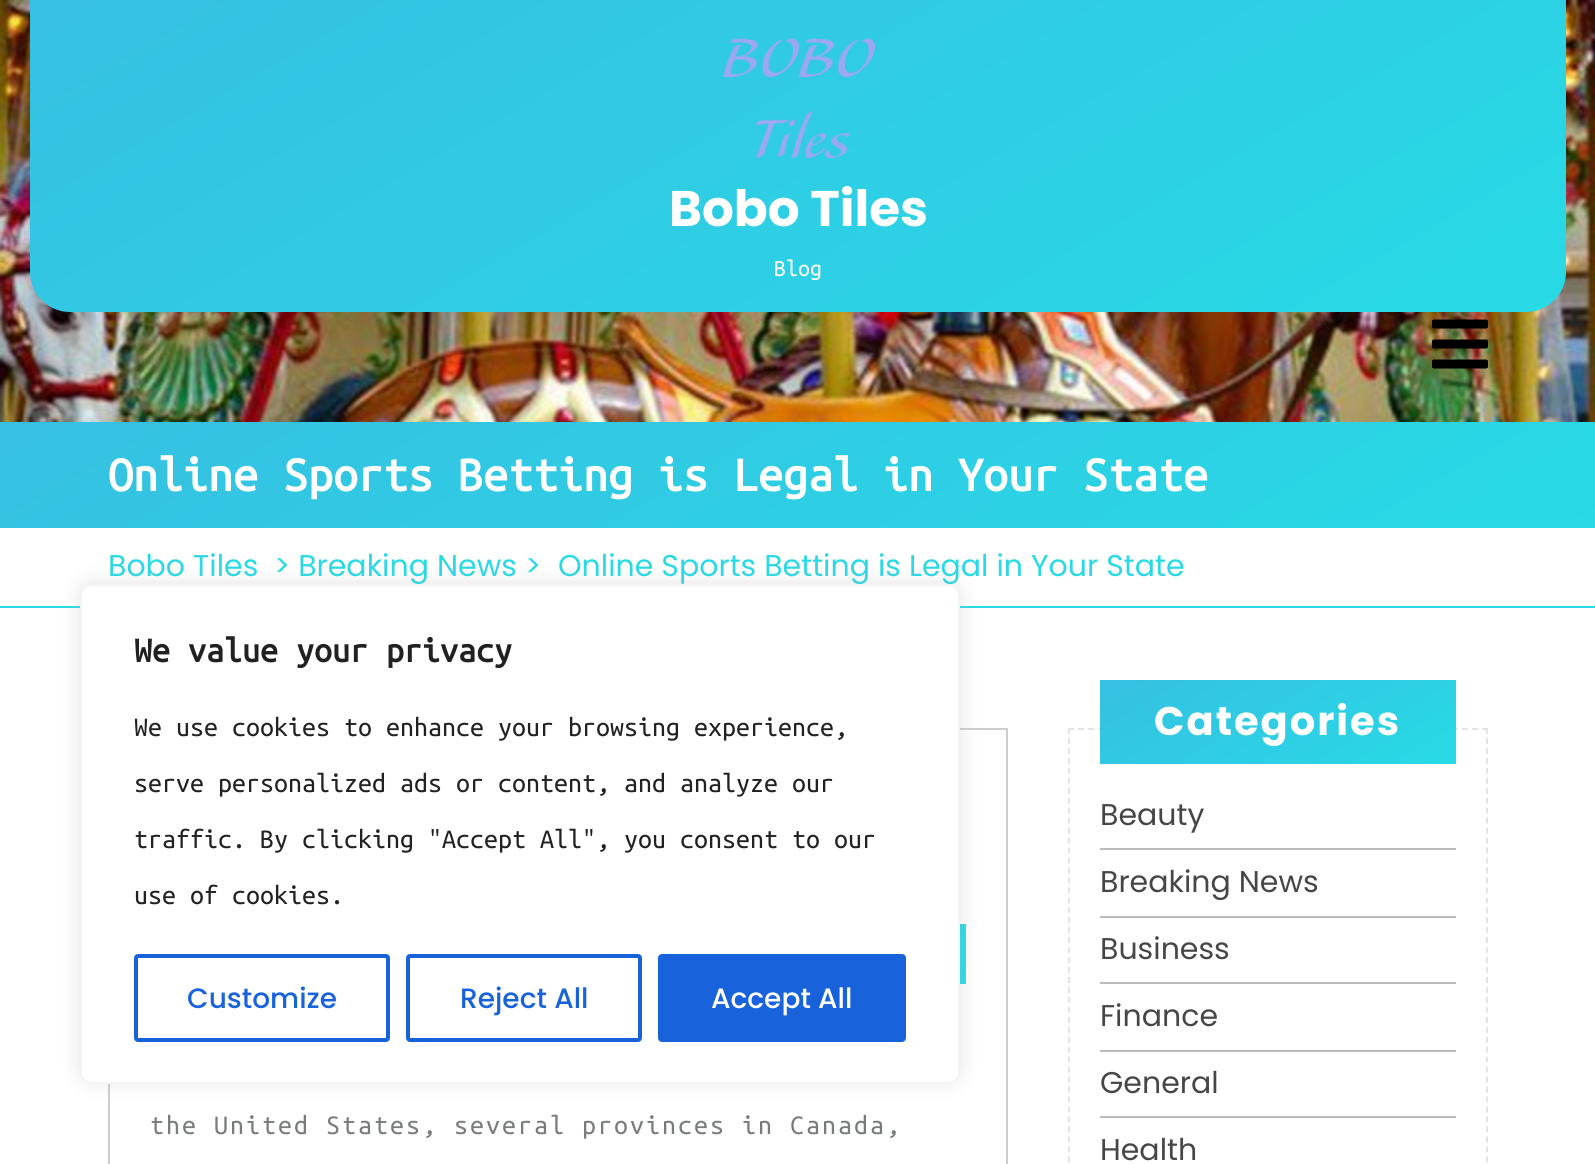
#include <cairo.h>
#include <math.h>
#include <stddef.h>

static cairo_t *ctx;

static void use_color(int r, int g, int b) {
    cairo_set_source_rgb(ctx, r / 255.0, g / 255.0, b / 255.0);
}

static void spaced_text(double x, double y, const char *s, double letter, double word) {
    cairo_move_to(ctx, x, y);
    while (*s) {
        char ch[5] = {0};
        int n = 0;
        do ch[n++] = *s++; while ((*s & 0xC0) == 0x80);
        cairo_show_text(ctx, ch);
        cairo_rel_move_to(ctx, letter + word * (*ch == ' '), 0);
    }
}

static void round_rect(double x, double y, double w, double h, double r) {
    cairo_new_sub_path(ctx);
    cairo_arc(ctx, x + w - r, y + h - r, r, 0, M_PI / 2);
    cairo_arc(ctx, x + r, y + h - r, r, M_PI / 2, M_PI);
    cairo_arc(ctx, x + r, y + r, r, M_PI, 1.5 * M_PI);
    cairo_arc(ctx, x + w - r, y + r, r, 1.5 * M_PI, 2 * M_PI);
    cairo_close_path(ctx);
}

static void shadow(double x, double y, double w, double h, double r, double blur, double alpha) {
    cairo_push_group_with_content(ctx, CAIRO_CONTENT_ALPHA);
    cairo_set_operator(ctx, CAIRO_OPERATOR_SOURCE);
    for (int i = 15; i >= -15 && fmin(w, h) + blur * i / 3 > 0; i -= 2) {
        double e = blur * i / 6;
        cairo_set_source_rgba(ctx, 0, 0, 0, alpha * erfc((i - 1) / 8.5) / 2);
        round_rect(x - e, y - e, w + 2 * e, h + 2 * e, fmax(0, fmin(r + e + blur * .6, fmin(w, h) / 2 + e)));
        cairo_fill(ctx);
    }
    cairo_pattern_t *soft = cairo_pop_group(ctx);
    cairo_mask(ctx, soft);
    cairo_pattern_destroy(soft);
}

static void picture(const char *path, double x, double y, double w, double h) {
    cairo_surface_t *image = cairo_image_surface_create_from_png(path);
    cairo_save(ctx);
    cairo_set_source_surface(ctx, image, x, y);
    cairo_rectangle(ctx, x, y, w, h);
    cairo_fill(ctx);
    cairo_restore(ctx);
    cairo_surface_destroy(image);
}

int main(void) {
    cairo_surface_t *surface = cairo_image_surface_create(CAIRO_FORMAT_RGB24, 1595, 1164);
    ctx = cairo_create(surface);
    cairo_font_options_t *options = cairo_font_options_create();
    cairo_font_options_set_hint_metrics(options, CAIRO_HINT_METRICS_OFF);
    cairo_font_options_set_hint_style(options, CAIRO_HINT_STYLE_NONE);
    cairo_set_font_options(ctx, options);
    cairo_set_miter_limit(ctx, 4);
    cairo_pattern_t *gradient;
    use_color(255, 255, 255);
    cairo_paint(ctx);
    picture("img1.png", 0, 0, 1595, 422);
    gradient = cairo_pattern_create_linear(1058, 606, 538, -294);
    cairo_pattern_add_color_stop_rgba(gradient, 0, 0.153, 0.855, 0.898, 1);
    cairo_pattern_add_color_stop_rgba(gradient, 1, 0.212, 0.753, 0.886, 1);
    cairo_set_source(ctx, gradient);
    cairo_pattern_destroy(gradient);
    cairo_new_path(ctx);
    cairo_move_to(ctx, 30, 0);
    cairo_line_to(ctx, 1566, 0);
    cairo_line_to(ctx, 1566, 272);
    cairo_curve_to(ctx, 1566, 294, 1548, 312, 1526, 312);
    cairo_line_to(ctx, 70, 312);
    cairo_curve_to(ctx, 48, 312, 30, 294, 30, 272);
    cairo_close_path(ctx);
    cairo_fill(ctx);
    picture("img2.png", 722, 38, 154, 121);
    cairo_select_font_face(ctx, "Poppins", CAIRO_FONT_SLANT_NORMAL, CAIRO_FONT_WEIGHT_BOLD);
    cairo_set_font_size(ctx, 50);
    use_color(255, 255, 255);
    cairo_move_to(ctx, 669, 226);
    cairo_show_text(ctx, "Bobo Tiles");
    cairo_select_font_face(ctx, "Ubuntu Mono", CAIRO_FONT_SLANT_NORMAL, CAIRO_FONT_WEIGHT_NORMAL);
    cairo_set_font_size(ctx, 24);
    cairo_move_to(ctx, 774, 276);
    cairo_show_text(ctx, "Blog");
    picture("img3.png", 1432, 319, 56, 50);
    gradient = cairo_pattern_create_linear(1020, 860, 576, 90);
    cairo_pattern_add_color_stop_rgba(gradient, 0, 0.153, 0.855, 0.898, 1);
    cairo_pattern_add_color_stop_rgba(gradient, 1, 0.212, 0.753, 0.886, 1);
    cairo_set_source(ctx, gradient);
    cairo_pattern_destroy(gradient);
    cairo_rectangle(ctx, 0, 422, 1595, 106);
    cairo_fill(ctx);
    cairo_select_font_face(ctx, "Ubuntu Mono", CAIRO_FONT_SLANT_NORMAL, CAIRO_FONT_WEIGHT_BOLD);
    cairo_set_font_size(ctx, 50);
    use_color(255, 255, 255);
    cairo_move_to(ctx, 108, 491);
    cairo_show_text(ctx, "Online Sports Betting is Legal in Your State");
    use_color(39, 218, 229);
    cairo_rectangle(ctx, 0, 606, 1595, 2);
    cairo_fill(ctx);
    cairo_select_font_face(ctx, "Poppins", CAIRO_FONT_SLANT_NORMAL, CAIRO_FONT_WEIGHT_NORMAL);
    cairo_set_font_size(ctx, 30);
    cairo_move_to(ctx, 108, 576);
    cairo_show_text(ctx, "Bobo Tiles");
    cairo_move_to(ctx, 274, 576);
    cairo_show_text(ctx, "> Breaking News >");
    cairo_move_to(ctx, 558, 576);
    cairo_show_text(ctx, "Online Sports Betting is Legal in Your State");
    cairo_rectangle(ctx, 109, 729, 898, 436);
    use_color(205, 205, 205);
    cairo_stroke(ctx);
    gradient = cairo_pattern_create_linear(673, 1153, 443, 755);
    cairo_pattern_add_color_stop_rgba(gradient, 0, 0.153, 0.855, 0.898, 1);
    cairo_pattern_add_color_stop_rgba(gradient, 1, 0.212, 0.753, 0.886, 1);
    cairo_set_source(ctx, gradient);
    cairo_pattern_destroy(gradient);
    cairo_rectangle(ctx, 960, 924, 6, 60);
    cairo_fill(ctx);
    cairo_select_font_face(ctx, "Ubuntu Mono", CAIRO_FONT_SLANT_NORMAL, CAIRO_FONT_WEIGHT_NORMAL);
    cairo_set_font_size(ctx, 28);
    use_color(121, 124, 125);
    spaced_text(150, 1134, "the United States, several provinces in Canada,", 2, 0);
    cairo_new_path(ctx);
    cairo_move_to(ctx, 1068, 729);
    cairo_line_to(ctx, 1488, 729);
    use_color(228, 228, 228);
    cairo_set_dash(ctx, (double[]){6, 4.1}, 2, 0);
    cairo_stroke(ctx);
    cairo_new_path(ctx);
    cairo_move_to(ctx, 1487, 728);
    cairo_line_to(ctx, 1487, 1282);
    cairo_set_dash(ctx, (double[]){6, 3.96}, 2, 0);
    cairo_stroke(ctx);
    cairo_new_path(ctx);
    cairo_move_to(ctx, 1069, 728);
    cairo_line_to(ctx, 1069, 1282);
    cairo_stroke(ctx);
    gradient = cairo_pattern_create_linear(1341, 831, 1215, 613);
    cairo_pattern_add_color_stop_rgba(gradient, 0, 0.153, 0.855, 0.898, 1);
    cairo_pattern_add_color_stop_rgba(gradient, 1, 0.212, 0.753, 0.886, 1);
    cairo_set_source(ctx, gradient);
    cairo_pattern_destroy(gradient);
    cairo_rectangle(ctx, 1100, 680, 356, 84);
    cairo_fill(ctx);
    cairo_select_font_face(ctx, "Poppins", CAIRO_FONT_SLANT_NORMAL, CAIRO_FONT_WEIGHT_BOLD);
    cairo_set_font_size(ctx, 40);
    use_color(255, 255, 255);
    spaced_text(1154, 735, "Categories", 2, 0);
    use_color(187, 187, 187);
    cairo_rectangle(ctx, 1100, 848, 356, 2);
    cairo_fill(ctx);
    cairo_select_font_face(ctx, "Poppins", CAIRO_FONT_SLANT_NORMAL, CAIRO_FONT_WEIGHT_NORMAL);
    cairo_set_font_size(ctx, 30);
    use_color(70, 70, 70);
    cairo_move_to(ctx, 1100, 825);
    cairo_show_text(ctx, "Beauty");
    use_color(187, 187, 187);
    cairo_rectangle(ctx, 1100, 916, 356, 2);
    cairo_fill(ctx);
    use_color(70, 70, 70);
    cairo_move_to(ctx, 1100, 892);
    cairo_show_text(ctx, "Breaking News");
    use_color(187, 187, 187);
    cairo_rectangle(ctx, 1100, 982, 356, 2);
    cairo_fill(ctx);
    use_color(70, 70, 70);
    cairo_move_to(ctx, 1100, 959);
    cairo_show_text(ctx, "Business");
    use_color(187, 187, 187);
    cairo_rectangle(ctx, 1100, 1050, 356, 2);
    cairo_fill(ctx);
    use_color(70, 70, 70);
    cairo_move_to(ctx, 1100, 1026);
    cairo_show_text(ctx, "Finance");
    use_color(187, 187, 187);
    cairo_rectangle(ctx, 1100, 1116, 356, 2);
    cairo_fill(ctx);
    use_color(70, 70, 70);
    cairo_move_to(ctx, 1100, 1093);
    cairo_show_text(ctx, "General");
    cairo_move_to(ctx, 1100, 1160);
    cairo_show_text(ctx, "Health");
    use_color(172, 171, 171);
    shadow(80, 582, 880, 500, 12, 10, 0.3);
    use_color(255, 255, 255);
    round_rect(81, 585, 878, 498, 11);
    cairo_fill_preserve(ctx);
    use_color(244, 244, 244);
    cairo_set_dash(ctx, NULL, 0, 0);
    cairo_stroke(ctx);
    cairo_select_font_face(ctx, "Ubuntu Mono", CAIRO_FONT_SLANT_NORMAL, CAIRO_FONT_WEIGHT_BOLD);
    cairo_set_font_size(ctx, 36);
    use_color(33, 33, 33);
    cairo_move_to(ctx, 134, 662);
    cairo_show_text(ctx, "We value your privacy");
    cairo_select_font_face(ctx, "Ubuntu Mono", CAIRO_FONT_SLANT_NORMAL, CAIRO_FONT_WEIGHT_NORMAL);
    cairo_set_font_size(ctx, 28);
    cairo_move_to(ctx, 134, 736);
    cairo_show_text(ctx, "We use cookies to enhance your browsing experience,");
    cairo_move_to(ctx, 134, 792);
    cairo_show_text(ctx, "serve personalized ads or content, and analyze our");
    cairo_move_to(ctx, 134, 848);
    cairo_show_text(ctx, "traffic. By clicking \"Accept All\", you consent to our");
    cairo_move_to(ctx, 134, 904);
    cairo_show_text(ctx, "use of cookies.");
    round_rect(136, 956, 252, 84, 2);
    use_color(24, 99, 220);
    cairo_set_line_width(ctx, 4);
    cairo_stroke(ctx);
    cairo_select_font_face(ctx, "Poppins Medium", CAIRO_FONT_SLANT_NORMAL, CAIRO_FONT_WEIGHT_NORMAL);
    cairo_move_to(ctx, 187, 1008);
    cairo_show_text(ctx, "Customize");
    round_rect(408, 956, 232, 84, 2);
    cairo_stroke(ctx);
    cairo_move_to(ctx, 460, 1008);
    cairo_show_text(ctx, "Reject All");
    round_rect(660, 956, 244, 84, 2);
    cairo_fill_preserve(ctx);
    cairo_stroke(ctx);
    use_color(255, 255, 255);
    cairo_move_to(ctx, 711, 1008);
    cairo_show_text(ctx, "Accept All");
    cairo_surface_write_to_png(surface, "result.png");
    cairo_font_options_destroy(options);
    cairo_destroy(ctx);
    cairo_surface_destroy(surface);
    return 0;
}
